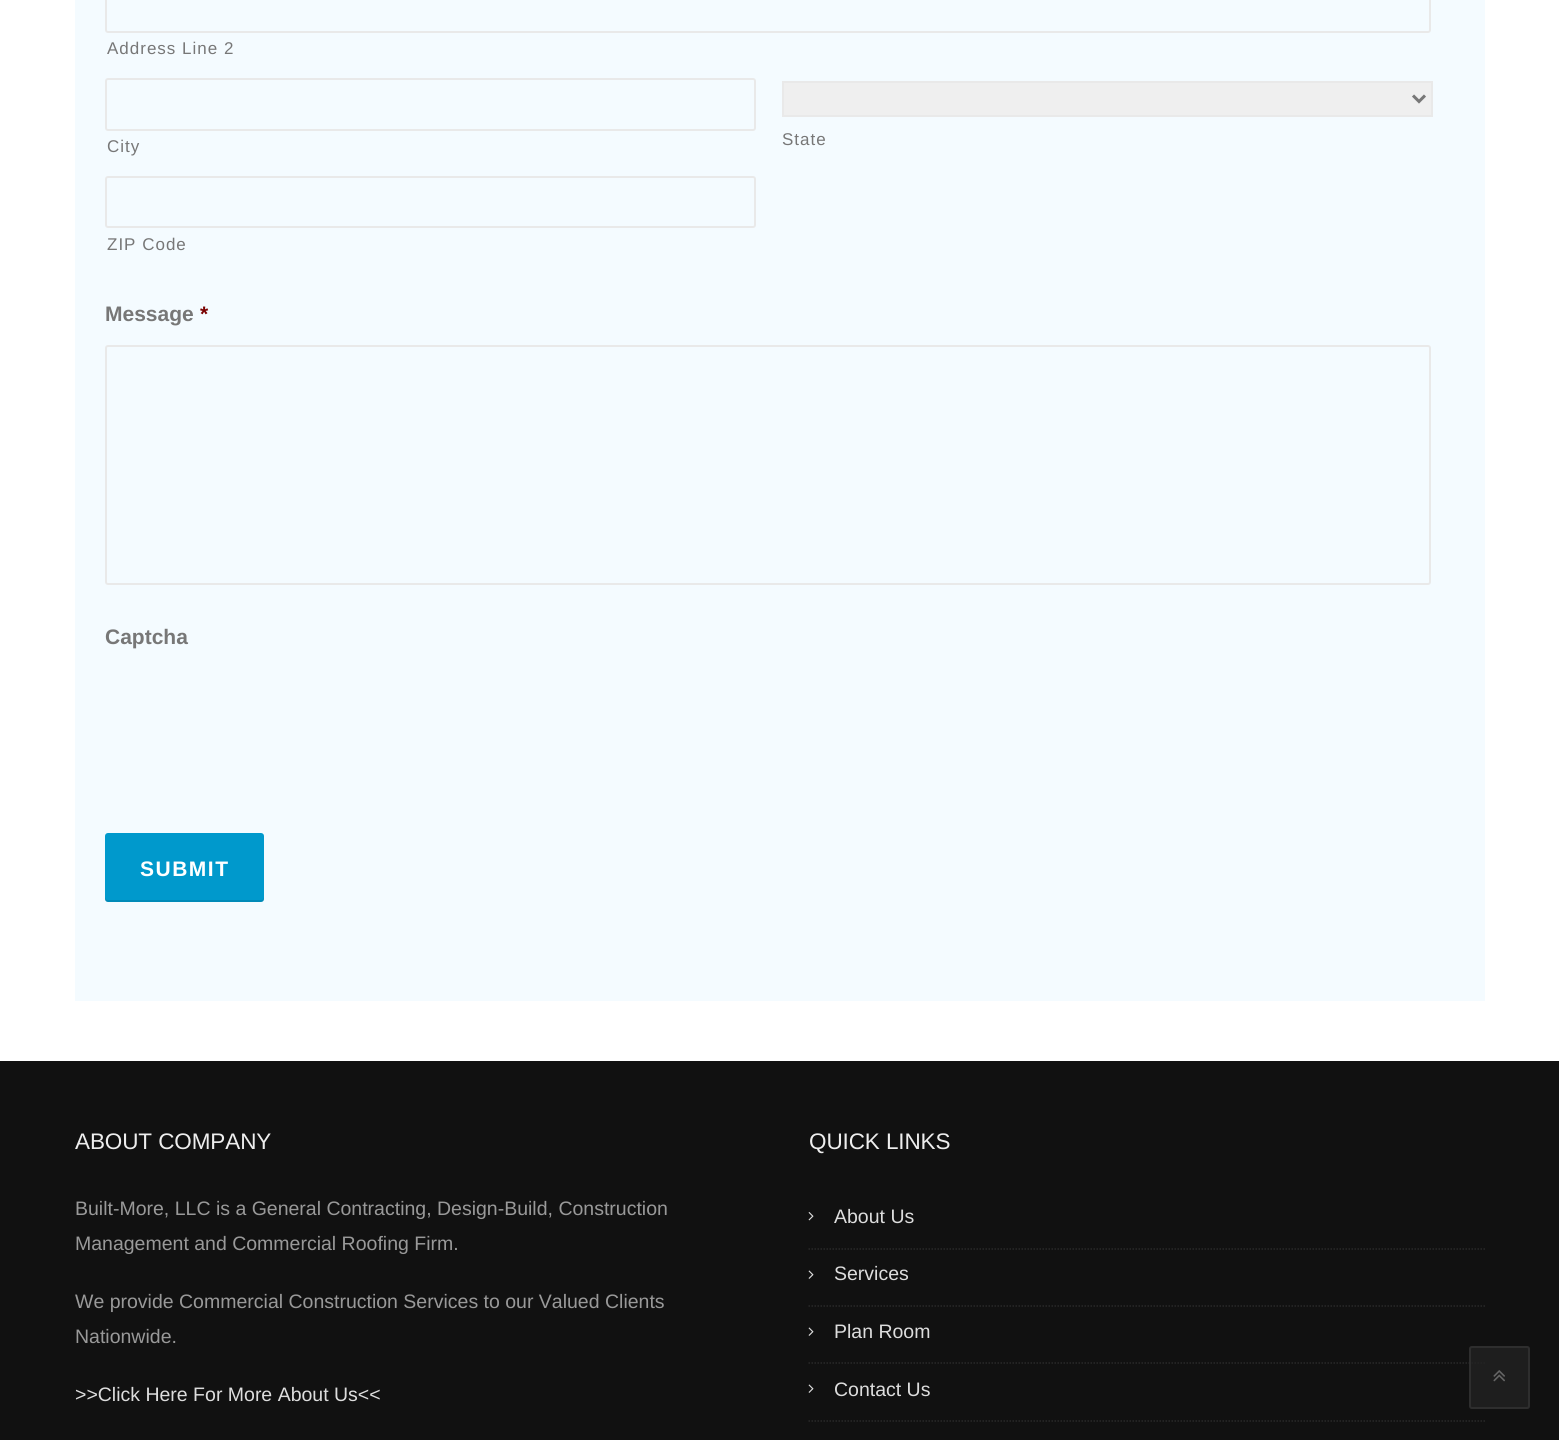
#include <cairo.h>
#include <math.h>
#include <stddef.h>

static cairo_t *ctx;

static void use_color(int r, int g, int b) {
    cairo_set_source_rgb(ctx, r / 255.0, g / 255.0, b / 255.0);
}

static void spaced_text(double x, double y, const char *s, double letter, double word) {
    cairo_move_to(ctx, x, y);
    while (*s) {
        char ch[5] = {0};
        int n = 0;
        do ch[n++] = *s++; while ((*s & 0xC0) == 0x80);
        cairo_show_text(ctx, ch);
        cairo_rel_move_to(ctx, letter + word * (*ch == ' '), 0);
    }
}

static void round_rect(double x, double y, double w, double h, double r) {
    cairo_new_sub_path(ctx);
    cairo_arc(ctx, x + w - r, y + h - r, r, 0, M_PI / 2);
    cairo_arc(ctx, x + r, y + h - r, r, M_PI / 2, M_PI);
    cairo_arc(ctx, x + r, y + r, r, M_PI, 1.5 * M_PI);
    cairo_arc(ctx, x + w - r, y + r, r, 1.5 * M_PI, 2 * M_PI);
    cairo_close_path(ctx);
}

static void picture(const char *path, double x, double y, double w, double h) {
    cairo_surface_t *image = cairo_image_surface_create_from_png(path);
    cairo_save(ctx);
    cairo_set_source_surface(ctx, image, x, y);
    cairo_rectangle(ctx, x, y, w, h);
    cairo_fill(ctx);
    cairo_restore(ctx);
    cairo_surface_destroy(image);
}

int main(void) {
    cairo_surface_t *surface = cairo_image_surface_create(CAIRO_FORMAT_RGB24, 1559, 1440);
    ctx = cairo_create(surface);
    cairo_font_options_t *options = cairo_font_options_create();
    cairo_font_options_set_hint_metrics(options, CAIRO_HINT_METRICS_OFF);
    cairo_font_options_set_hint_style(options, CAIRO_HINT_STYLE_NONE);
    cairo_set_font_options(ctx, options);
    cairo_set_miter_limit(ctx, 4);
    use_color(255, 255, 255);
    cairo_paint(ctx);
    use_color(244, 251, 255);
    cairo_rectangle(ctx, 75, 0, 1410, 1001);
    cairo_fill(ctx);
    round_rect(106, -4, 1324, 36, 2);
    use_color(233, 233, 233);
    cairo_stroke(ctx);
    cairo_select_font_face(ctx, "Liberation Sans", CAIRO_FONT_SLANT_NORMAL, CAIRO_FONT_WEIGHT_NORMAL);
    cairo_set_font_size(ctx, 17);
    use_color(119, 119, 119);
    spaced_text(107, 54, "Address Line 2", 1, 0);
    round_rect(106, 79, 649, 51, 2);
    use_color(233, 233, 233);
    cairo_stroke(ctx);
    use_color(119, 119, 119);
    spaced_text(107, 152, "City", 1, 0);
    use_color(239, 239, 239);
    cairo_rectangle(ctx, 783, 82, 649, 34);
    cairo_fill_preserve(ctx);
    use_color(233, 233, 233);
    cairo_stroke(ctx);
    cairo_new_path(ctx);
    cairo_move_to(ctx, 1413, 95.5);
    cairo_line_to(ctx, 1419, 101.5);
    cairo_line_to(ctx, 1425, 95.5);
    use_color(119, 119, 119);
    cairo_set_line_width(ctx, 3);
    cairo_stroke(ctx);
    spaced_text(782, 145, "State", 1, 0);
    round_rect(106, 177, 649, 50, 2);
    use_color(233, 233, 233);
    cairo_set_line_width(ctx, 2);
    cairo_stroke(ctx);
    use_color(119, 119, 119);
    spaced_text(107, 250, "ZIP Code", 1, 0);
    cairo_select_font_face(ctx, "Liberation Sans", CAIRO_FONT_SLANT_NORMAL, CAIRO_FONT_WEIGHT_BOLD);
    cairo_set_font_size(ctx, 21);
    cairo_move_to(ctx, 105, 321);
    cairo_show_text(ctx, "Message");
    use_color(121, 0, 0);
    cairo_move_to(ctx, 200, 321);
    cairo_show_text(ctx, "*");
    round_rect(106, 346, 1324, 238, 2);
    use_color(233, 233, 233);
    cairo_stroke(ctx);
    use_color(119, 119, 119);
    cairo_move_to(ctx, 105, 644);
    cairo_show_text(ctx, "Captcha");
    use_color(0, 153, 204);
    round_rect(105, 833, 159, 69, 3);
    cairo_fill(ctx);
    cairo_set_source_rgba(ctx, 0, 0, 0, 0.1);
    cairo_new_path(ctx);
    cairo_move_to(ctx, 105, 897);
    cairo_line_to(ctx, 105, 899);
    cairo_curve_to(ctx, 105, 901, 106, 902, 108, 902);
    cairo_line_to(ctx, 261, 902);
    cairo_curve_to(ctx, 263, 902, 264, 901, 264, 899);
    cairo_line_to(ctx, 264, 897);
    cairo_curve_to(ctx, 264, 899, 263, 900, 261, 900);
    cairo_line_to(ctx, 108, 900);
    cairo_curve_to(ctx, 106, 900, 105, 899, 105, 897);
    cairo_close_path(ctx);
    cairo_fill(ctx);
    use_color(255, 255, 255);
    spaced_text(140, 876, "SUBMIT", 1.5, 0);
    use_color(17, 17, 17);
    cairo_rectangle(ctx, 0, 1061, 1559, 379);
    cairo_fill(ctx);
    cairo_select_font_face(ctx, "Liberation Sans", CAIRO_FONT_SLANT_NORMAL, CAIRO_FONT_WEIGHT_NORMAL);
    cairo_set_font_size(ctx, 22.5);
    use_color(238, 238, 238);
    spaced_text(75, 1149, "ABOUT COMPANY", -0.1, 0);
    cairo_set_font_size(ctx, 19.5);
    use_color(153, 153, 153);
    cairo_move_to(ctx, 75, 1215);
    cairo_show_text(ctx, "Built-More, LLC is a General Contracting, Design-Build, Construction");
    cairo_move_to(ctx, 75, 1250);
    cairo_show_text(ctx, "Management and Commercial Roofing Firm.");
    cairo_move_to(ctx, 75, 1308);
    cairo_show_text(ctx, "We provide Commercial Construction Services to our Valued Clients");
    cairo_move_to(ctx, 75, 1343);
    cairo_show_text(ctx, "Nationwide.");
    use_color(221, 221, 221);
    cairo_move_to(ctx, 75, 1401);
    cairo_show_text(ctx, ">>Click Here For More About Us<<");
    cairo_set_font_size(ctx, 22.5);
    use_color(238, 238, 238);
    spaced_text(809, 1149, "QUICK LINKS", -0.1, 0);
    cairo_new_path(ctx);
    cairo_move_to(ctx, 808.5, 1249);
    cairo_line_to(ctx, 1485, 1249);
    use_color(41, 41, 41);
    cairo_set_line_width(ctx, 1.5);
    cairo_set_dash(ctx, (double[]){1.5, 1.5}, 2, 0);
    cairo_stroke(ctx);
    picture("img1.png", 808, 1212, 6, 9);
    cairo_set_font_size(ctx, 19.5);
    use_color(221, 221, 221);
    cairo_move_to(ctx, 834, 1223);
    cairo_show_text(ctx, "About Us");
    cairo_new_path(ctx);
    cairo_move_to(ctx, 808.5, 1306);
    cairo_line_to(ctx, 1485, 1306);
    use_color(41, 41, 41);
    cairo_stroke(ctx);
    picture("img2.png", 808, 1270, 6, 9);
    use_color(221, 221, 221);
    cairo_move_to(ctx, 834, 1280);
    cairo_show_text(ctx, "Services");
    cairo_new_path(ctx);
    cairo_move_to(ctx, 808.5, 1363);
    cairo_line_to(ctx, 1485, 1363);
    use_color(41, 41, 41);
    cairo_stroke(ctx);
    picture("img2.png", 808, 1327, 6, 9);
    use_color(221, 221, 221);
    cairo_move_to(ctx, 834, 1338);
    cairo_show_text(ctx, "Plan Room");
    cairo_new_path(ctx);
    cairo_move_to(ctx, 808.5, 1421);
    cairo_line_to(ctx, 1485, 1421);
    use_color(41, 41, 41);
    cairo_stroke(ctx);
    picture("img2.png", 808, 1384, 6, 9);
    use_color(221, 221, 221);
    cairo_move_to(ctx, 834, 1396);
    cairo_show_text(ctx, "Contact Us");
    cairo_set_source_rgba(ctx, 0.133, 0.133, 0.133, 0.8);
    round_rect(1469, 1346, 61, 63, 3);
    cairo_fill(ctx);
    round_rect(1470, 1347, 59, 61, 2);
    cairo_set_source_rgba(ctx, 0.2, 0.2, 0.2, 0.8);
    cairo_set_line_width(ctx, 2);
    cairo_set_dash(ctx, NULL, 0, 0);
    cairo_stroke(ctx);
    picture("img3.png", 1493, 1370, 12, 12);
    cairo_surface_write_to_png(surface, "result.png");
    cairo_font_options_destroy(options);
    cairo_destroy(ctx);
    cairo_surface_destroy(surface);
    return 0;
}
